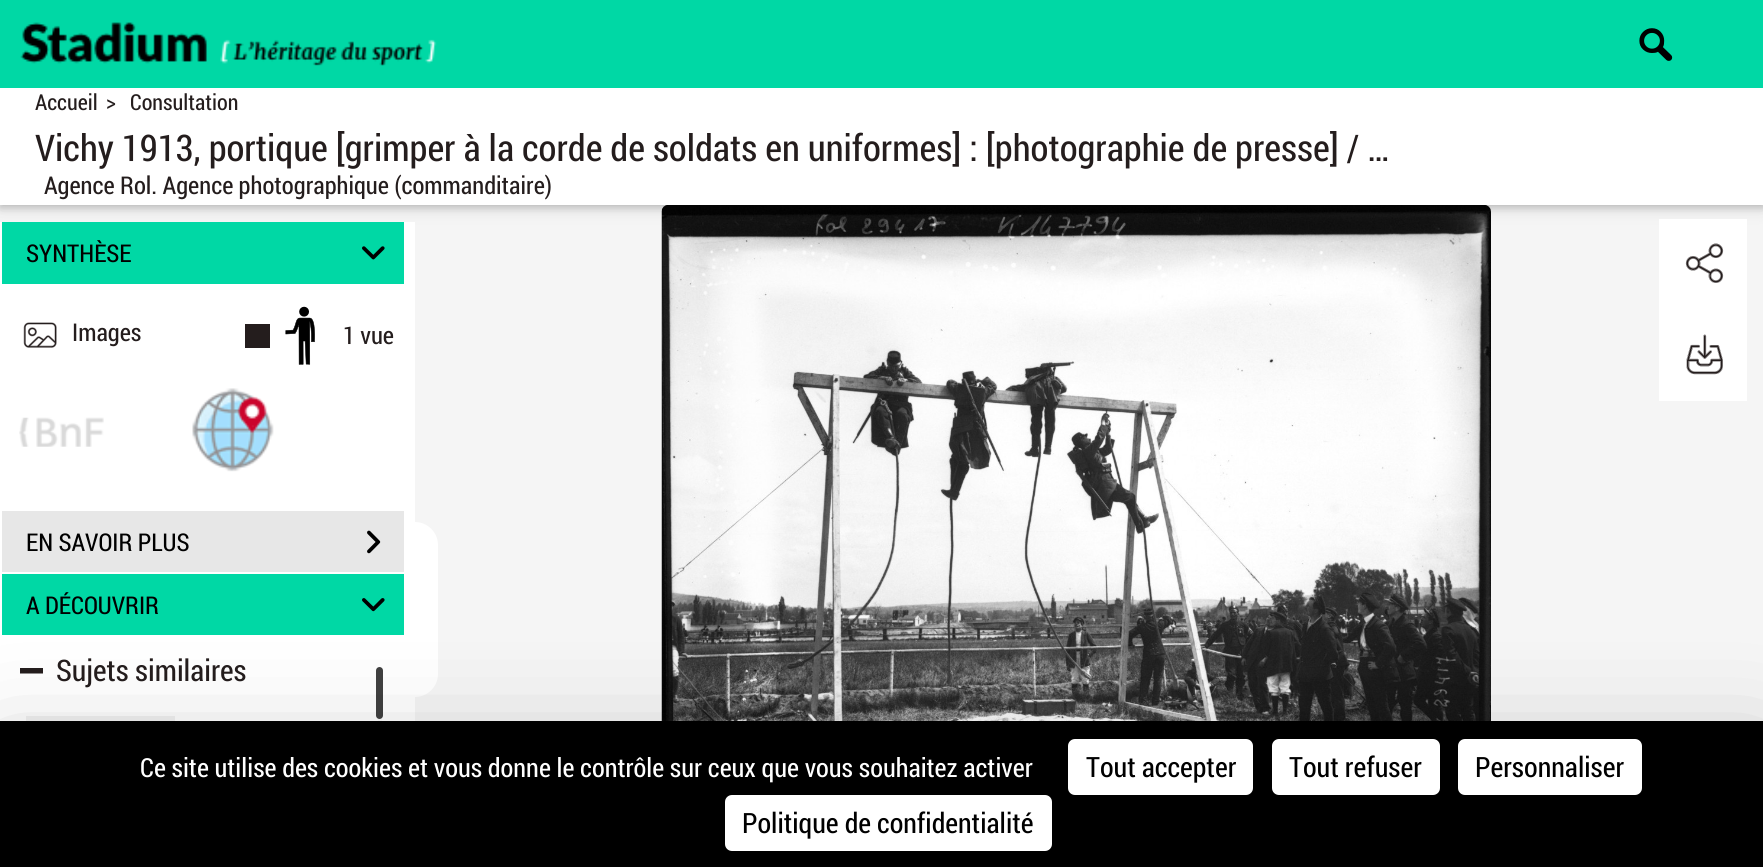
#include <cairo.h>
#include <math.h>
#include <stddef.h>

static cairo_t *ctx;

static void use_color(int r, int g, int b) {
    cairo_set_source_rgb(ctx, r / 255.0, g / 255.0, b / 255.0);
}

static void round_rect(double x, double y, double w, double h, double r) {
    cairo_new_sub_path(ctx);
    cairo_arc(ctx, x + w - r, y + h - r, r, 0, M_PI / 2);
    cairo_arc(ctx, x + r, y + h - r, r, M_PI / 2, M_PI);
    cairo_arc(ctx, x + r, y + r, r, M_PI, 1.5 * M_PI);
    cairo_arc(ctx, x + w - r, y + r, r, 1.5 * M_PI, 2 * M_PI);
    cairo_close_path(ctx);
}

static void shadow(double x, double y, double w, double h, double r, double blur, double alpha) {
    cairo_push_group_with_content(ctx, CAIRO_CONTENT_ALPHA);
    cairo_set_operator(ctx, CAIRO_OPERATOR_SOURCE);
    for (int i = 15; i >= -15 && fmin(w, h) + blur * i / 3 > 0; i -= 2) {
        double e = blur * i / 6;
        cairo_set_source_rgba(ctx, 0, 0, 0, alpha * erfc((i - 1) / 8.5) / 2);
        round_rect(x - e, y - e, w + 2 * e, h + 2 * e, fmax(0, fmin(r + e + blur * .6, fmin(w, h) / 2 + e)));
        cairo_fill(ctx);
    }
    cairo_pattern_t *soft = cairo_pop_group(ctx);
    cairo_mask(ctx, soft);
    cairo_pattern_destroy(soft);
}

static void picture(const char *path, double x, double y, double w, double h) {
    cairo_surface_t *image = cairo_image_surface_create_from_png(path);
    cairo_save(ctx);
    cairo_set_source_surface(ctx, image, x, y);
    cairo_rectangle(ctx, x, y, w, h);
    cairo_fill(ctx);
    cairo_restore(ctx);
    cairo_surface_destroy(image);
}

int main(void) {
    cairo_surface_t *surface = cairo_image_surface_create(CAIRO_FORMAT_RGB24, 1763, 867);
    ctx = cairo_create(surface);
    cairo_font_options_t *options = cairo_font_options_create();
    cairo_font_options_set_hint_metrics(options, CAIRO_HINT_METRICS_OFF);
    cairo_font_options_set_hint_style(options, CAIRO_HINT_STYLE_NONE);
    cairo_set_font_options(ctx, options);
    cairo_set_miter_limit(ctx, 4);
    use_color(245, 245, 245);
    cairo_paint(ctx);
    picture("img10.png", 661, 205, 830, 516);
    use_color(0, 0, 0);
    shadow(0, 91, 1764, 117, 0, 9, 0.12);
    shadow(0, 91, 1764, 117, 0, 3.5, 0.16);
    use_color(0, 216, 165);
    cairo_rectangle(ctx, 0, 0, 1763, 88);
    cairo_fill(ctx);
    picture("img1.png", 20, 22, 417, 44);
    picture("img2.png", 1639, 28, 34, 33);
    use_color(255, 255, 255);
    cairo_rectangle(ctx, 0, 88, 1763, 117);
    cairo_fill(ctx);
    cairo_select_font_face(ctx, "Roboto Condensed", CAIRO_FONT_SLANT_NORMAL, CAIRO_FONT_WEIGHT_NORMAL);
    cairo_set_font_size(ctx, 22);
    use_color(36, 29, 29);
    cairo_move_to(ctx, 35, 110);
    cairo_show_text(ctx, "Accueil");
    cairo_move_to(ctx, 106, 110);
    cairo_show_text(ctx, ">");
    cairo_move_to(ctx, 130, 110);
    cairo_show_text(ctx, "Consultation");
    cairo_set_font_size(ctx, 36.75);
    cairo_move_to(ctx, 35, 161);
    cairo_show_text(ctx, "Vichy 1913, portique [grimper à la corde de soldats en uniformes] : [photographie de presse] / …");
    cairo_set_font_size(ctx, 24.5);
    cairo_move_to(ctx, 44, 194);
    cairo_show_text(ctx, "Agence Rol. Agence photographique (commanditaire)");
    use_color(255, 255, 255);
    cairo_rectangle(ctx, 406, 222, 9, 499);
    cairo_fill(ctx);
    cairo_rectangle(ctx, 0, 222, 406, 499);
    cairo_fill(ctx);
    use_color(0, 216, 165);
    cairo_rectangle(ctx, 2, 222, 402, 62);
    cairo_fill(ctx);
    use_color(0, 0, 0);
    cairo_move_to(ctx, 26, 262);
    cairo_show_text(ctx, "SYNTHÈSE");
    picture("img3.png", 362, 246, 23, 14);
    picture("img4.png", 23, 322, 34, 26);
    use_color(36, 29, 29);
    cairo_move_to(ctx, 72, 341);
    cairo_show_text(ctx, "Images");
    cairo_rectangle(ctx, 245, 324, 25, 24);
    cairo_fill(ctx);
    picture("img5.png", 285, 306, 30, 59);
    cairo_move_to(ctx, 343, 344);
    cairo_show_text(ctx, "1 vue");
    picture("img6.png", 19, 417, 85, 30);
    picture("img7.png", 192, 388, 82, 84);
    use_color(231, 231, 231);
    cairo_rectangle(ctx, 2, 511, 402, 61);
    cairo_fill(ctx);
    use_color(0, 0, 0);
    cairo_move_to(ctx, 26, 551);
    cairo_show_text(ctx, "EN SAVOIR PLUS");
    picture("img8.png", 367, 530, 14, 24);
    use_color(0, 216, 165);
    cairo_rectangle(ctx, 2, 574, 402, 61);
    cairo_fill(ctx);
    use_color(0, 0, 0);
    cairo_move_to(ctx, 26, 614);
    cairo_show_text(ctx, "A DÉCOUVRIR");
    picture("img9.png", 362, 598, 23, 14);
    cairo_set_font_size(ctx, 29.75);
    use_color(36, 29, 29);
    cairo_move_to(ctx, 56, 681);
    cairo_show_text(ctx, "Sujets similaires");
    cairo_new_path(ctx);
    cairo_move_to(ctx, 28.5, 673.5);
    cairo_line_to(ctx, 20, 673.5);
    cairo_line_to(ctx, 20, 668);
    cairo_line_to(ctx, 43, 668);
    cairo_line_to(ctx, 43, 673.5);
    cairo_close_path(ctx);
    cairo_fill(ctx);
    use_color(241, 241, 241);
    cairo_rectangle(ctx, 26, 716, 149, 5);
    cairo_fill(ctx);
    use_color(251, 251, 251);
    round_rect(378, 667, 4, 175, 2);
    cairo_fill(ctx);
    use_color(64, 64, 64);
    round_rect(376, 667, 7, 52, 3.5);
    cairo_fill(ctx);
    use_color(255, 255, 255);
    cairo_new_path(ctx);
    cairo_move_to(ctx, 415, 522);
    cairo_curve_to(ctx, 427.5, 522, 438, 532.5, 438, 545);
    cairo_line_to(ctx, 438, 674);
    cairo_curve_to(ctx, 438, 686.5, 427.5, 697, 415, 697);
    cairo_close_path(ctx);
    cairo_fill(ctx);
    cairo_rectangle(ctx, 1659, 219, 88, 182);
    cairo_fill(ctx);
    picture("img11.png", 1685, 243, 39, 40);
    picture("img12.png", 1686, 334, 37, 41);
    use_color(0, 0, 0);
    shadow(0, 756, 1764, 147, 0, 52.5, 0.25);
    use_color(0, 0, 0);
    cairo_rectangle(ctx, 0, 721, 1763, 146);
    cairo_fill(ctx);
    cairo_set_font_size(ctx, 26.25);
    use_color(255, 255, 255);
    cairo_move_to(ctx, 140, 777);
    cairo_show_text(ctx, "Ce site utilise des cookies et vous donne le contrôle sur ceux que vous souhaitez activer");
    round_rect(1068, 739, 185, 56, 7);
    cairo_fill(ctx);
    cairo_set_font_size(ctx, 28);
    use_color(0, 0, 0);
    cairo_move_to(ctx, 1086, 777);
    cairo_show_text(ctx, "Tout accepter");
    use_color(255, 255, 255);
    round_rect(1272, 739, 168, 56, 7);
    cairo_fill(ctx);
    use_color(0, 0, 0);
    cairo_move_to(ctx, 1289, 777);
    cairo_show_text(ctx, "Tout refuser");
    use_color(255, 255, 255);
    round_rect(1458, 739, 184, 56, 7);
    cairo_fill(ctx);
    use_color(0, 0, 0);
    cairo_move_to(ctx, 1475, 777);
    cairo_show_text(ctx, "Personnaliser");
    use_color(255, 255, 255);
    round_rect(725, 795, 327, 56, 7);
    cairo_fill(ctx);
    use_color(0, 0, 0);
    cairo_move_to(ctx, 742, 833);
    cairo_show_text(ctx, "Politique de confidentialité");
    cairo_surface_write_to_png(surface, "result.png");
    cairo_font_options_destroy(options);
    cairo_destroy(ctx);
    cairo_surface_destroy(surface);
    return 0;
}
